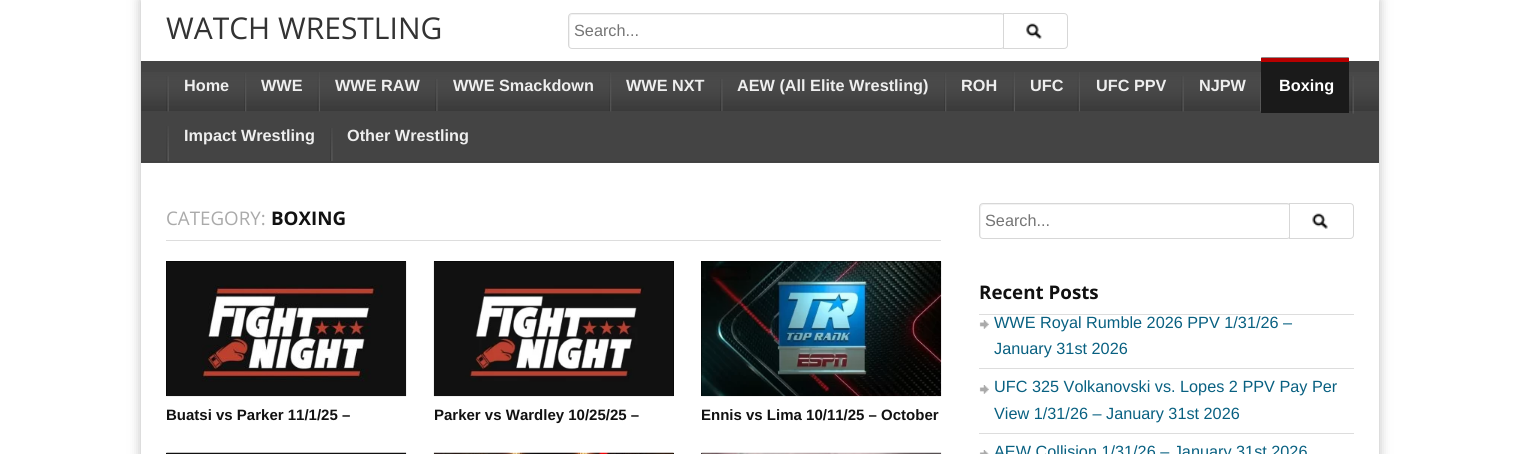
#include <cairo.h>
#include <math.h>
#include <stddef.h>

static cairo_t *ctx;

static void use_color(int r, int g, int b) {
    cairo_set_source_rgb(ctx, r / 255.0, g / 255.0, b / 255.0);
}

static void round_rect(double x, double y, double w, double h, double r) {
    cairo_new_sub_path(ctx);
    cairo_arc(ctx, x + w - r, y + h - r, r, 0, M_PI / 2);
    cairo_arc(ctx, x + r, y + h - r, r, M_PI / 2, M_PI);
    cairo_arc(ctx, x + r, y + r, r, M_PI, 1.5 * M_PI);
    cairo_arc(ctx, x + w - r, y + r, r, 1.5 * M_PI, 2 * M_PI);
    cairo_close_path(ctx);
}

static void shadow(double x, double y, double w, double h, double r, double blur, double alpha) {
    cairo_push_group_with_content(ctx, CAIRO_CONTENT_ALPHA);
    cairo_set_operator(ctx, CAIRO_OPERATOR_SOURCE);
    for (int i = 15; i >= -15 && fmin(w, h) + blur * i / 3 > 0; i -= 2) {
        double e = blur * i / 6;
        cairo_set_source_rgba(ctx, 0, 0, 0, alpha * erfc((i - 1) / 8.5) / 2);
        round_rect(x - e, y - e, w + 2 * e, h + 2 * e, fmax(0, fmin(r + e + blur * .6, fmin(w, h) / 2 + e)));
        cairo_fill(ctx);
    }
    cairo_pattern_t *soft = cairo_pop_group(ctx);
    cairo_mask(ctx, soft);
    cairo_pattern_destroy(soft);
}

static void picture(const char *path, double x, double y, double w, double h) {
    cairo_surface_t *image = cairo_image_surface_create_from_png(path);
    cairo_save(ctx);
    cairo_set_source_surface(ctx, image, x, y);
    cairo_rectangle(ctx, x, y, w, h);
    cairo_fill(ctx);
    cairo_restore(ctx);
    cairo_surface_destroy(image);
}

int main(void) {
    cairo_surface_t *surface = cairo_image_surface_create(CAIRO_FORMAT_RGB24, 1519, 454);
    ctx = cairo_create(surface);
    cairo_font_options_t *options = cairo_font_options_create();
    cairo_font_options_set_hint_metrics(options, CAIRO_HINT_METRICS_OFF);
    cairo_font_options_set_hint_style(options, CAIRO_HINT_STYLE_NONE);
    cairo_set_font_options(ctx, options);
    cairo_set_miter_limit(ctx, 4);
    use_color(255, 255, 255);
    cairo_paint(ctx);
    use_color(120, 120, 120);
    shadow(141, 0, 1238, 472, 0, 6, 0.5);
    use_color(255, 255, 255);
    cairo_rectangle(ctx, 141, 0, 1238, 454);
    cairo_fill(ctx);
    cairo_select_font_face(ctx, "Open Sans", CAIRO_FONT_SLANT_NORMAL, CAIRO_FONT_WEIGHT_NORMAL);
    cairo_set_font_size(ctx, 30);
    use_color(51, 51, 51);
    cairo_move_to(ctx, 166, 39);
    cairo_show_text(ctx, "WATCH WRESTLING");
    use_color(242, 242, 242);
    cairo_new_path(ctx);
    cairo_move_to(ctx, 572, 15);
    cairo_line_to(ctx, 1002, 15);
    cairo_line_to(ctx, 1004, 15);
    cairo_curve_to(ctx, 1003, 15, 1002, 14, 1002, 14);
    cairo_line_to(ctx, 572, 14);
    cairo_curve_to(ctx, 570, 14, 569, 15, 569, 16);
    cairo_line_to(ctx, 569, 46);
    cairo_curve_to(ctx, 569, 46, 570, 47, 570, 48);
    cairo_line_to(ctx, 570, 27);
    cairo_curve_to(ctx, 570, 26, 569, 15, 572, 15);
    cairo_close_path(ctx);
    cairo_fill(ctx);
    round_rect(568.5, 13.5, 436, 35, 3.5);
    use_color(215, 215, 215);
    cairo_set_line_width(ctx, 1);
    cairo_stroke(ctx);
    cairo_select_font_face(ctx, "Liberation Sans", CAIRO_FONT_SLANT_NORMAL, CAIRO_FONT_WEIGHT_NORMAL);
    cairo_set_font_size(ctx, 16.25);
    use_color(117, 117, 117);
    cairo_move_to(ctx, 574, 36);
    cairo_show_text(ctx, "Search...");
    use_color(255, 255, 255);
    cairo_new_path(ctx);
    cairo_move_to(ctx, 1003.5, 13.5);
    cairo_line_to(ctx, 1064, 13.5);
    cairo_curve_to(ctx, 1066, 13.5, 1067.5, 15, 1067.5, 17);
    cairo_line_to(ctx, 1067.5, 45);
    cairo_curve_to(ctx, 1067.5, 47, 1066, 48.5, 1064, 48.5);
    cairo_line_to(ctx, 1003.5, 48.5);
    cairo_close_path(ctx);
    cairo_fill_preserve(ctx);
    use_color(215, 215, 215);
    cairo_stroke(ctx);
    picture("img1.png", 1026, 23, 16, 16);
    use_color(68, 68, 68);
    cairo_rectangle(ctx, 141, 61, 1238, 102);
    cairo_fill(ctx);
    picture("img2.png", 141, 72, 1238, 39);
    use_color(64, 64, 64);
    cairo_rectangle(ctx, 141, 161, 1238, 1);
    cairo_fill(ctx);
    picture("img3.png", 1351, 76, 3, 38);
    picture("img4.png", 166, 76, 3, 36);
    cairo_select_font_face(ctx, "Liberation Sans", CAIRO_FONT_SLANT_NORMAL, CAIRO_FONT_WEIGHT_BOLD);
    use_color(238, 238, 238);
    cairo_move_to(ctx, 184, 91);
    cairo_show_text(ctx, "Home");
    picture("img5.png", 244, 73, 3, 39);
    cairo_move_to(ctx, 261, 91);
    cairo_show_text(ctx, "WWE");
    picture("img6.png", 317, 72, 3, 40);
    cairo_move_to(ctx, 335, 91);
    cairo_show_text(ctx, "WWE RAW");
    picture("img7.png", 435, 79, 3, 32);
    cairo_move_to(ctx, 453, 91);
    cairo_show_text(ctx, "WWE Smackdown");
    picture("img5.png", 609, 73, 3, 39);
    cairo_move_to(ctx, 626, 91);
    cairo_show_text(ctx, "WWE NXT");
    picture("img7.png", 720, 79, 3, 32);
    cairo_move_to(ctx, 737, 91);
    cairo_show_text(ctx, "AEW (All Elite Wrestling)");
    picture("img5.png", 944, 73, 3, 39);
    cairo_move_to(ctx, 961, 91);
    cairo_show_text(ctx, "ROH");
    picture("img6.png", 1012, 72, 3, 40);
    cairo_move_to(ctx, 1030, 91);
    cairo_show_text(ctx, "UFC");
    picture("img6.png", 1077, 72, 3, 40);
    cairo_move_to(ctx, 1096, 91);
    cairo_show_text(ctx, "UFC PPV");
    picture("img4.png", 1181, 76, 3, 36);
    cairo_move_to(ctx, 1199, 91);
    cairo_show_text(ctx, "NJPW");
    picture("img8.png", 1260, 72, 1, 40);
    use_color(26, 26, 26);
    cairo_rectangle(ctx, 1261, 62, 88, 51);
    cairo_fill(ctx);
    picture("img9.png", 1261, 57, 88, 1);
    use_color(183, 0, 0);
    cairo_rectangle(ctx, 1261, 58, 88, 4);
    cairo_fill(ctx);
    use_color(255, 255, 255);
    cairo_move_to(ctx, 1279, 91);
    cairo_show_text(ctx, "Boxing");
    picture("img10.png", 166, 126, 3, 36);
    use_color(238, 238, 238);
    cairo_move_to(ctx, 184, 141);
    cairo_show_text(ctx, "Impact Wrestling");
    picture("img11.png", 330, 128, 3, 33);
    cairo_move_to(ctx, 347, 141);
    cairo_show_text(ctx, "Other Wrestling");
    use_color(221, 221, 221);
    cairo_rectangle(ctx, 166, 240, 775, 1);
    cairo_fill(ctx);
    cairo_select_font_face(ctx, "Open Sans", CAIRO_FONT_SLANT_NORMAL, CAIRO_FONT_WEIGHT_NORMAL);
    cairo_set_font_size(ctx, 18.75);
    use_color(170, 170, 170);
    cairo_move_to(ctx, 166, 225);
    cairo_show_text(ctx, "CATEGORY:");
    cairo_select_font_face(ctx, "Open Sans", CAIRO_FONT_SLANT_NORMAL, CAIRO_FONT_WEIGHT_BOLD);
    use_color(17, 17, 17);
    cairo_move_to(ctx, 271, 225);
    cairo_show_text(ctx, "BOXING");
    use_color(0, 0, 0);
    cairo_rectangle(ctx, 166, 261, 240, 135);
    cairo_fill(ctx);
    picture("img12.png", 166, 261, 241, 136);
    cairo_select_font_face(ctx, "Liberation Sans", CAIRO_FONT_SLANT_NORMAL, CAIRO_FONT_WEIGHT_BOLD);
    cairo_set_font_size(ctx, 15);
    use_color(17, 17, 17);
    cairo_move_to(ctx, 166, 420);
    cairo_show_text(ctx, "Buatsi vs Parker 11/1/25 –");
    use_color(0, 0, 0);
    cairo_rectangle(ctx, 434, 261, 240, 135);
    cairo_fill(ctx);
    picture("img13.png", 433, 261, 241, 136);
    use_color(17, 17, 17);
    cairo_move_to(ctx, 434, 420);
    cairo_show_text(ctx, "Parker vs Wardley 10/25/25 –");
    use_color(0, 0, 0);
    cairo_rectangle(ctx, 701, 261, 240, 135);
    cairo_fill(ctx);
    picture("img14.png", 701, 261, 241, 136);
    use_color(17, 17, 17);
    cairo_move_to(ctx, 701, 420);
    cairo_show_text(ctx, "Ennis vs Lima 10/11/25 – October");
    use_color(0, 0, 0);
    cairo_rectangle(ctx, 166, 453, 1, 1);
    cairo_fill(ctx);
    picture("img15.png", 166, 452, 241, 2);
    cairo_rectangle(ctx, 673, 453, 1, 1);
    cairo_fill(ctx);
    picture("img16.png", 433, 452, 241, 2);
    cairo_rectangle(ctx, 701, 453, 1, 1);
    cairo_fill(ctx);
    picture("img17.png", 701, 452, 241, 2);
    use_color(242, 242, 242);
    cairo_new_path(ctx);
    cairo_move_to(ctx, 984, 205);
    cairo_line_to(ctx, 1290, 205);
    cairo_curve_to(ctx, 1289, 204, 1288, 204, 1288, 204);
    cairo_line_to(ctx, 982, 204);
    cairo_curve_to(ctx, 981, 204, 980, 205, 980, 206);
    cairo_line_to(ctx, 980, 236);
    cairo_curve_to(ctx, 980, 236, 981, 237, 981, 238);
    cairo_line_to(ctx, 981, 213);
    cairo_curve_to(ctx, 981, 210, 980, 205, 984, 205);
    cairo_close_path(ctx);
    cairo_fill(ctx);
    round_rect(979.5, 203.5, 311, 35, 3.5);
    use_color(215, 215, 215);
    cairo_stroke(ctx);
    cairo_select_font_face(ctx, "Liberation Sans", CAIRO_FONT_SLANT_NORMAL, CAIRO_FONT_WEIGHT_NORMAL);
    cairo_set_font_size(ctx, 16.25);
    use_color(117, 117, 117);
    cairo_move_to(ctx, 985, 226);
    cairo_show_text(ctx, "Search...");
    use_color(255, 255, 255);
    cairo_new_path(ctx);
    cairo_move_to(ctx, 1289.5, 203.5);
    cairo_line_to(ctx, 1350, 203.5);
    cairo_curve_to(ctx, 1352, 203.5, 1353.5, 205, 1353.5, 207);
    cairo_line_to(ctx, 1353.5, 235);
    cairo_curve_to(ctx, 1353.5, 237, 1352, 238.5, 1350, 238.5);
    cairo_line_to(ctx, 1289.5, 238.5);
    cairo_close_path(ctx);
    cairo_fill_preserve(ctx);
    use_color(215, 215, 215);
    cairo_stroke(ctx);
    picture("img18.png", 1312, 213, 16, 16);
    use_color(221, 221, 221);
    cairo_rectangle(ctx, 979, 314, 375, 1);
    cairo_fill(ctx);
    cairo_select_font_face(ctx, "Open Sans", CAIRO_FONT_SLANT_NORMAL, CAIRO_FONT_WEIGHT_BOLD);
    cairo_set_font_size(ctx, 18.75);
    use_color(17, 17, 17);
    cairo_move_to(ctx, 979, 299);
    cairo_show_text(ctx, "Recent Posts");
    picture("img19.png", 979, 320, 10, 9);
    use_color(221, 221, 221);
    cairo_rectangle(ctx, 979, 368, 375, 1);
    cairo_fill(ctx);
    cairo_select_font_face(ctx, "Liberation Sans", CAIRO_FONT_SLANT_NORMAL, CAIRO_FONT_WEIGHT_NORMAL);
    cairo_set_font_size(ctx, 16.25);
    use_color(8, 96, 129);
    cairo_move_to(ctx, 994, 328);
    cairo_show_text(ctx, "WWE Royal Rumble 2026 PPV 1/31/26 –");
    cairo_move_to(ctx, 994, 354);
    cairo_show_text(ctx, "January 31st 2026");
    picture("img19.png", 979, 385, 10, 9);
    use_color(221, 221, 221);
    cairo_rectangle(ctx, 979, 433, 375, 1);
    cairo_fill(ctx);
    use_color(8, 96, 129);
    cairo_move_to(ctx, 994, 392);
    cairo_show_text(ctx, "UFC 325 Volkanovski vs. Lopes 2 PPV Pay Per");
    cairo_move_to(ctx, 994, 419);
    cairo_show_text(ctx, "View 1/31/26 – January 31st 2026");
    picture("img20.png", 979, 450, 10, 4);
    cairo_move_to(ctx, 994, 457);
    cairo_show_text(ctx, "AEW Collision 1/31/26 – January 31st 2026");
    cairo_surface_write_to_png(surface, "result.png");
    cairo_font_options_destroy(options);
    cairo_destroy(ctx);
    cairo_surface_destroy(surface);
    return 0;
}
